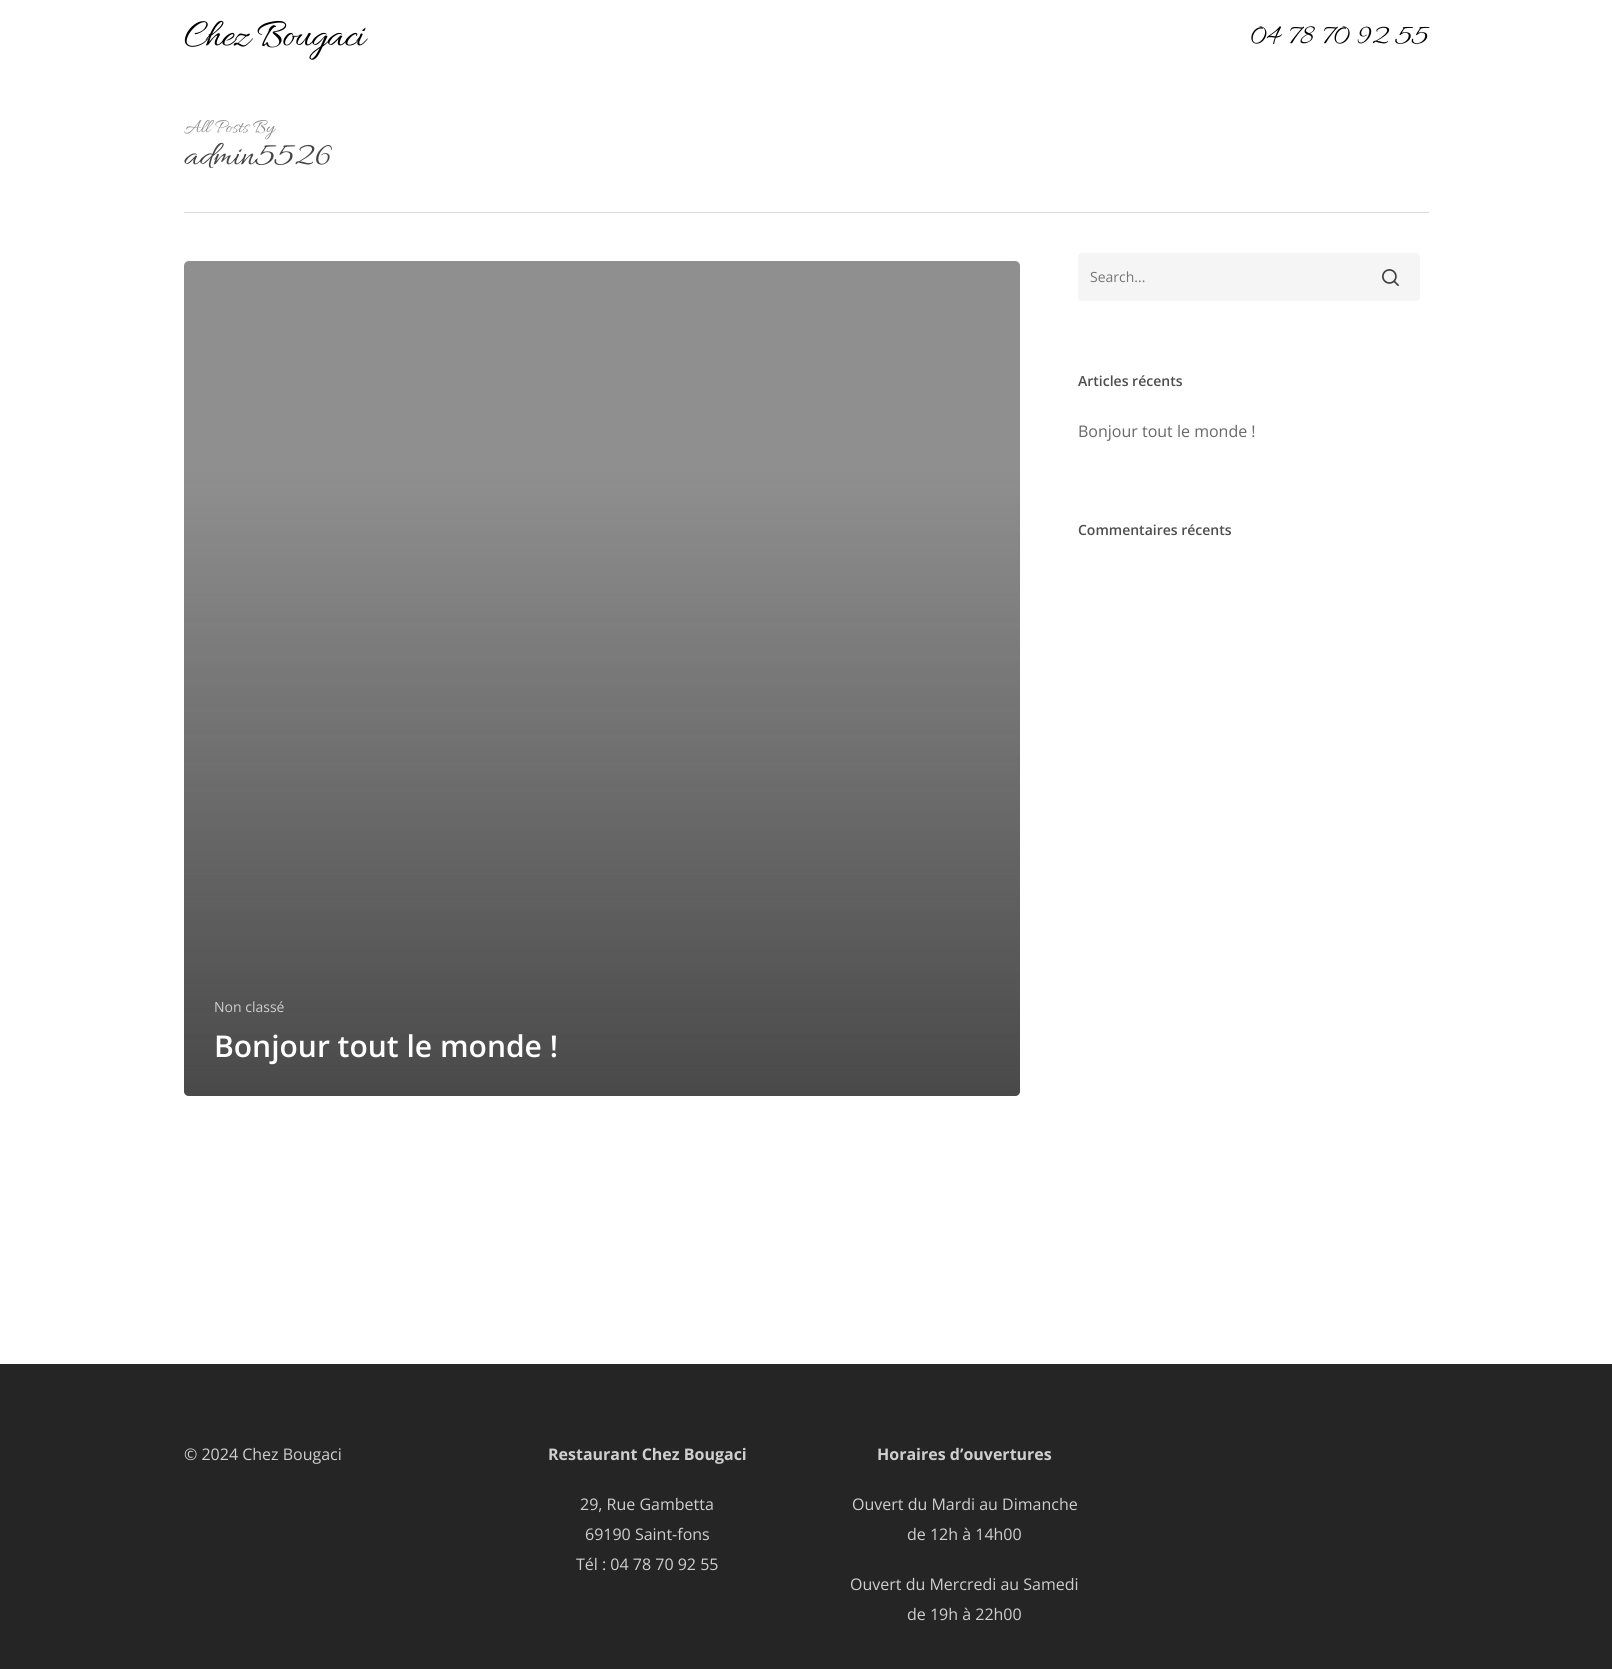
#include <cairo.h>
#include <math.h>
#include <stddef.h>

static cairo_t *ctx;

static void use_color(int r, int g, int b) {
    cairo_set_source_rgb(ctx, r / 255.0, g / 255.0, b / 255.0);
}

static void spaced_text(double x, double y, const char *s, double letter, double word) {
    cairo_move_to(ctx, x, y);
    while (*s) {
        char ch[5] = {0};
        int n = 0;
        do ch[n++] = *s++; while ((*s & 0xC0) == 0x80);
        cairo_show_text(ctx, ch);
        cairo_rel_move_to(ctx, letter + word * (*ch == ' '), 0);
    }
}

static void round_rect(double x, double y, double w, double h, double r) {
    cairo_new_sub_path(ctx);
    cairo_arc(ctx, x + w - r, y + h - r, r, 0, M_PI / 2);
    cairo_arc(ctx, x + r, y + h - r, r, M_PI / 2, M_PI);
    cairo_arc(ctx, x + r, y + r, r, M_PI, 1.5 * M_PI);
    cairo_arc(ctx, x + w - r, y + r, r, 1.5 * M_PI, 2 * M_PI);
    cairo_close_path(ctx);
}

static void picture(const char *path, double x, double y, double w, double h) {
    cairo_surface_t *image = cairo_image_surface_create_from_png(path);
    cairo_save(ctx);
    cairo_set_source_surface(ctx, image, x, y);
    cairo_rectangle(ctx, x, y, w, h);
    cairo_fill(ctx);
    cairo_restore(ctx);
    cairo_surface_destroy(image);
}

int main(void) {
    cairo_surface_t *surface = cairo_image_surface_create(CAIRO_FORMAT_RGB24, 1612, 1669);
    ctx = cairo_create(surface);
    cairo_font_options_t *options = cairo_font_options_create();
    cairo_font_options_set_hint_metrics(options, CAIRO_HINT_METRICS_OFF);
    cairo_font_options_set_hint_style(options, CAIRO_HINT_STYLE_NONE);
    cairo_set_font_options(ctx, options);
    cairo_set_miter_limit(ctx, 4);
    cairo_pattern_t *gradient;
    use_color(255, 255, 255);
    cairo_paint(ctx);
    cairo_select_font_face(ctx, "Allura", CAIRO_FONT_SLANT_NORMAL, CAIRO_FONT_WEIGHT_NORMAL);
    cairo_set_font_size(ctx, 40);
    use_color(0, 0, 0);
    spaced_text(184, 45, "Chez Bougaci", -1, 0);
    cairo_set_font_size(ctx, 30);
    cairo_move_to(ctx, 1250, 43);
    cairo_show_text(ctx, "04 78 70 92 55");
    use_color(217, 217, 217);
    cairo_rectangle(ctx, 184, 212, 1245, 1);
    cairo_fill(ctx);
    cairo_set_font_size(ctx, 20);
    use_color(140, 140, 140);
    cairo_move_to(ctx, 184, 132);
    cairo_show_text(ctx, "All Posts By");
    cairo_set_font_size(ctx, 35);
    use_color(68, 68, 68);
    cairo_move_to(ctx, 184, 164);
    cairo_show_text(ctx, "admin5526");
    use_color(245, 245, 245);
    round_rect(1078, 253, 342, 48, 4);
    cairo_fill(ctx);
    cairo_select_font_face(ctx, "Open Sans", CAIRO_FONT_SLANT_NORMAL, CAIRO_FONT_WEIGHT_NORMAL);
    cairo_set_font_size(ctx, 14);
    use_color(117, 117, 117);
    cairo_move_to(ctx, 1090, 282);
    cairo_show_text(ctx, "Search...");
    picture("img1.png", 1382, 269, 17, 17);
    cairo_select_font_face(ctx, "Open Sans SemiBold", CAIRO_FONT_SLANT_NORMAL, CAIRO_FONT_WEIGHT_NORMAL);
    use_color(77, 77, 77);
    cairo_move_to(ctx, 1078, 386);
    cairo_show_text(ctx, "Articles récents");
    cairo_select_font_face(ctx, "Open Sans", CAIRO_FONT_SLANT_NORMAL, CAIRO_FONT_WEIGHT_NORMAL);
    cairo_set_font_size(ctx, 16);
    use_color(103, 103, 103);
    cairo_move_to(ctx, 1078, 437);
    cairo_show_text(ctx, "Bonjour tout le monde !");
    cairo_select_font_face(ctx, "Open Sans SemiBold", CAIRO_FONT_SLANT_NORMAL, CAIRO_FONT_WEIGHT_NORMAL);
    cairo_set_font_size(ctx, 14);
    use_color(77, 77, 77);
    cairo_move_to(ctx, 1078, 535);
    cairo_show_text(ctx, "Commentaires récents");
    use_color(179, 179, 179);
    round_rect(184, 261, 836, 835, 5);
    cairo_fill(ctx);
    cairo_set_source_rgba(ctx, 0, 0, 0, 0.2);
    round_rect(184, 261, 836, 835, 5);
    cairo_fill(ctx);
    gradient = cairo_pattern_create_linear(604, 471, 604, 1100);
    cairo_pattern_add_color_stop_rgba(gradient, 0, 0.137, 0.137, 0.137, 0);
    cairo_pattern_add_color_stop_rgba(gradient, 1, 0.137, 0.137, 0.137, 0.65);
    cairo_set_source(ctx, gradient);
    cairo_pattern_destroy(gradient);
    cairo_new_path(ctx);
    cairo_move_to(ctx, 184, 471);
    cairo_line_to(ctx, 1020, 471);
    cairo_line_to(ctx, 1020, 1091);
    cairo_curve_to(ctx, 1020, 1094, 1018, 1096, 1015, 1096);
    cairo_line_to(ctx, 189, 1096);
    cairo_curve_to(ctx, 186, 1096, 184, 1094, 184, 1091);
    cairo_close_path(ctx);
    cairo_fill(ctx);
    cairo_select_font_face(ctx, "Open Sans", CAIRO_FONT_SLANT_NORMAL, CAIRO_FONT_WEIGHT_NORMAL);
    use_color(207, 207, 207);
    cairo_move_to(ctx, 214, 1012);
    cairo_show_text(ctx, "Non classé");
    cairo_select_font_face(ctx, "Open Sans SemiBold", CAIRO_FONT_SLANT_NORMAL, CAIRO_FONT_WEIGHT_NORMAL);
    cairo_set_font_size(ctx, 30);
    use_color(255, 255, 255);
    cairo_move_to(ctx, 214, 1057);
    cairo_show_text(ctx, "Bonjour tout le monde !");
    use_color(37, 37, 37);
    cairo_rectangle(ctx, 0, 1364, 1612, 305);
    cairo_fill(ctx);
    cairo_select_font_face(ctx, "Open Sans", CAIRO_FONT_SLANT_NORMAL, CAIRO_FONT_WEIGHT_NORMAL);
    cairo_set_font_size(ctx, 16);
    use_color(207, 207, 207);
    cairo_move_to(ctx, 184, 1460);
    cairo_show_text(ctx, "© 2024 Chez Bougaci");
    cairo_select_font_face(ctx, "Open Sans", CAIRO_FONT_SLANT_NORMAL, CAIRO_FONT_WEIGHT_BOLD);
    cairo_move_to(ctx, 548, 1460);
    cairo_show_text(ctx, "Restaurant Chez Bougaci");
    cairo_select_font_face(ctx, "Open Sans", CAIRO_FONT_SLANT_NORMAL, CAIRO_FONT_WEIGHT_NORMAL);
    cairo_move_to(ctx, 580, 1510);
    cairo_show_text(ctx, "29, Rue Gambetta");
    cairo_move_to(ctx, 585, 1540);
    cairo_show_text(ctx, "69190 Saint-fons");
    cairo_move_to(ctx, 576, 1570);
    cairo_show_text(ctx, "Tél : 04 78 70 92 55");
    cairo_select_font_face(ctx, "Open Sans", CAIRO_FONT_SLANT_NORMAL, CAIRO_FONT_WEIGHT_BOLD);
    cairo_move_to(ctx, 877, 1460);
    cairo_show_text(ctx, "Horaires d’ouvertures");
    cairo_select_font_face(ctx, "Open Sans", CAIRO_FONT_SLANT_NORMAL, CAIRO_FONT_WEIGHT_NORMAL);
    cairo_move_to(ctx, 852, 1510);
    cairo_show_text(ctx, "Ouvert du Mardi au Dimanche");
    cairo_move_to(ctx, 907, 1540);
    cairo_show_text(ctx, "de 12h à 14h00");
    cairo_move_to(ctx, 850, 1590);
    cairo_show_text(ctx, "Ouvert du Mercredi au Samedi");
    cairo_move_to(ctx, 907, 1620);
    cairo_show_text(ctx, "de 19h à 22h00");
    cairo_surface_write_to_png(surface, "result.png");
    cairo_font_options_destroy(options);
    cairo_destroy(ctx);
    cairo_surface_destroy(surface);
    return 0;
}
